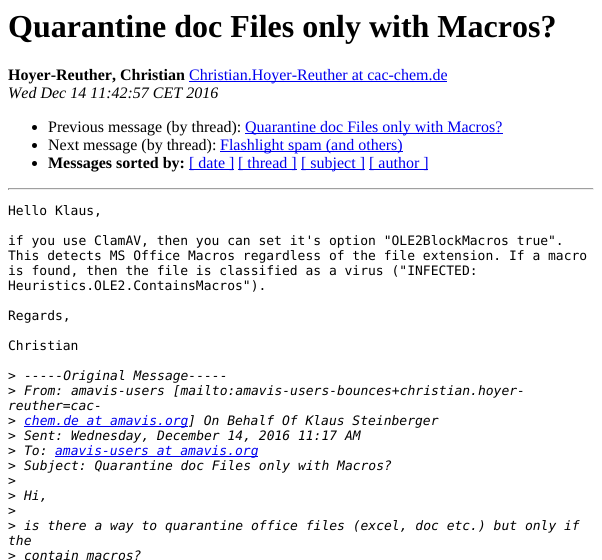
#include <cairo.h>
#include <math.h>
#include <stddef.h>

static cairo_t *ctx;

static void use_color(int r, int g, int b) {
    cairo_set_source_rgb(ctx, r / 255.0, g / 255.0, b / 255.0);
}

int main(void) {
    cairo_surface_t *surface = cairo_image_surface_create(CAIRO_FORMAT_RGB24, 602, 560);
    ctx = cairo_create(surface);
    cairo_font_options_t *options = cairo_font_options_create();
    cairo_font_options_set_hint_metrics(options, CAIRO_HINT_METRICS_OFF);
    cairo_font_options_set_hint_style(options, CAIRO_HINT_STYLE_NONE);
    cairo_set_font_options(ctx, options);
    cairo_set_miter_limit(ctx, 4);
    use_color(255, 255, 255);
    cairo_paint(ctx);
    cairo_select_font_face(ctx, "Liberation Serif", CAIRO_FONT_SLANT_NORMAL, CAIRO_FONT_WEIGHT_BOLD);
    cairo_set_font_size(ctx, 32);
    use_color(0, 0, 0);
    cairo_move_to(ctx, 8, 37);
    cairo_show_text(ctx, "Quarantine doc Files only with Macros?");
    cairo_set_font_size(ctx, 16);
    cairo_move_to(ctx, 8, 80);
    cairo_show_text(ctx, "Hoyer-Reuther, Christian");
    use_color(0, 0, 238);
    cairo_rectangle(ctx, 189, 81, 258, 1);
    cairo_fill(ctx);
    cairo_select_font_face(ctx, "Liberation Serif", CAIRO_FONT_SLANT_NORMAL, CAIRO_FONT_WEIGHT_NORMAL);
    cairo_move_to(ctx, 189, 80);
    cairo_show_text(ctx, "Christian.Hoyer-Reuther at cac-chem.de");
    cairo_select_font_face(ctx, "Liberation Serif", CAIRO_FONT_SLANT_ITALIC, CAIRO_FONT_WEIGHT_NORMAL);
    use_color(0, 0, 0);
    cairo_move_to(ctx, 8, 98);
    cairo_show_text(ctx, "Wed Dec 14 11:42:57 CET 2016");
    cairo_new_path(ctx);
    cairo_arc(ctx, 34.5, 127.5, 2.5, 0, 2 * M_PI);
    cairo_fill(ctx);
    cairo_select_font_face(ctx, "Liberation Serif", CAIRO_FONT_SLANT_NORMAL, CAIRO_FONT_WEIGHT_NORMAL);
    cairo_move_to(ctx, 48, 132);
    cairo_show_text(ctx, "Previous message (by thread):");
    use_color(0, 0, 238);
    cairo_rectangle(ctx, 245, 133, 258, 1);
    cairo_fill(ctx);
    cairo_move_to(ctx, 245, 132);
    cairo_show_text(ctx, "Quarantine doc Files only with Macros?");
    use_color(0, 0, 0);
    cairo_new_path(ctx);
    cairo_arc(ctx, 34.5, 145.5, 2.5, 0, 2 * M_PI);
    cairo_fill(ctx);
    cairo_move_to(ctx, 48, 150);
    cairo_show_text(ctx, "Next message (by thread):");
    use_color(0, 0, 238);
    cairo_rectangle(ctx, 220, 151, 183, 1);
    cairo_fill(ctx);
    cairo_move_to(ctx, 220, 150);
    cairo_show_text(ctx, "Flashlight spam (and others)");
    use_color(0, 0, 0);
    cairo_new_path(ctx);
    cairo_arc(ctx, 34.5, 163.5, 2.5, 0, 2 * M_PI);
    cairo_fill(ctx);
    cairo_select_font_face(ctx, "Liberation Serif", CAIRO_FONT_SLANT_NORMAL, CAIRO_FONT_WEIGHT_BOLD);
    cairo_move_to(ctx, 48, 168);
    cairo_show_text(ctx, "Messages sorted by:");
    use_color(0, 0, 238);
    cairo_rectangle(ctx, 189, 169, 45, 1);
    cairo_fill(ctx);
    cairo_select_font_face(ctx, "Liberation Serif", CAIRO_FONT_SLANT_NORMAL, CAIRO_FONT_WEIGHT_NORMAL);
    cairo_move_to(ctx, 189, 168);
    cairo_show_text(ctx, "[ date ]");
    cairo_rectangle(ctx, 238, 169, 59, 1);
    cairo_fill(ctx);
    cairo_move_to(ctx, 238, 168);
    cairo_show_text(ctx, "[ thread ]");
    cairo_rectangle(ctx, 301, 169, 64, 1);
    cairo_fill(ctx);
    cairo_move_to(ctx, 301, 168);
    cairo_show_text(ctx, "[ subject ]");
    cairo_rectangle(ctx, 369, 169, 59, 1);
    cairo_fill(ctx);
    cairo_move_to(ctx, 369, 168);
    cairo_show_text(ctx, "[ author ]");
    use_color(159, 159, 159);
    cairo_rectangle(ctx, 8, 188, 586, 1);
    cairo_fill(ctx);
    use_color(238, 238, 238);
    cairo_rectangle(ctx, 593, 188, 1, 2);
    cairo_fill(ctx);
    cairo_rectangle(ctx, 8, 189, 586, 1);
    cairo_fill(ctx);
    use_color(159, 159, 159);
    cairo_rectangle(ctx, 8, 188, 1, 2);
    cairo_fill(ctx);
    cairo_select_font_face(ctx, "DejaVu Sans Mono", CAIRO_FONT_SLANT_NORMAL, CAIRO_FONT_WEIGHT_NORMAL);
    cairo_set_font_size(ctx, 13);
    use_color(0, 0, 0);
    cairo_move_to(ctx, 8, 215);
    cairo_show_text(ctx, "Hello Klaus,");
    cairo_move_to(ctx, 8, 245);
    cairo_show_text(ctx, "if you use ClamAV, then you can set it's option \"OLE2BlockMacros true\".");
    cairo_move_to(ctx, 8, 260);
    cairo_show_text(ctx, "This detects MS Office Macros regardless of the file extension. If a macro");
    cairo_move_to(ctx, 8, 275);
    cairo_show_text(ctx, "is found, then the file is classified as a virus (\"INFECTED:");
    cairo_move_to(ctx, 8, 290);
    cairo_show_text(ctx, "Heuristics.OLE2.ContainsMacros\").");
    cairo_move_to(ctx, 8, 320);
    cairo_show_text(ctx, "Regards,");
    cairo_move_to(ctx, 8, 350);
    cairo_show_text(ctx, "Christian");
    cairo_move_to(ctx, 8, 380);
    cairo_show_text(ctx, ">");
    cairo_select_font_face(ctx, "DejaVu Sans Mono", CAIRO_FONT_SLANT_ITALIC, CAIRO_FONT_WEIGHT_NORMAL);
    cairo_move_to(ctx, 24, 380);
    cairo_show_text(ctx, "-----Original Message-----");
    cairo_select_font_face(ctx, "DejaVu Sans Mono", CAIRO_FONT_SLANT_NORMAL, CAIRO_FONT_WEIGHT_NORMAL);
    cairo_move_to(ctx, 8, 395);
    cairo_show_text(ctx, ">");
    cairo_select_font_face(ctx, "DejaVu Sans Mono", CAIRO_FONT_SLANT_ITALIC, CAIRO_FONT_WEIGHT_NORMAL);
    cairo_move_to(ctx, 24, 395);
    cairo_show_text(ctx, "From: amavis-users [mailto:amavis-users-bounces+christian.hoyer-");
    cairo_move_to(ctx, 8, 410);
    cairo_show_text(ctx, "reuther=cac-");
    cairo_select_font_face(ctx, "DejaVu Sans Mono", CAIRO_FONT_SLANT_NORMAL, CAIRO_FONT_WEIGHT_NORMAL);
    cairo_move_to(ctx, 8, 425);
    cairo_show_text(ctx, ">");
    use_color(0, 0, 238);
    cairo_rectangle(ctx, 24, 426, 164, 1);
    cairo_fill(ctx);
    cairo_select_font_face(ctx, "DejaVu Sans Mono", CAIRO_FONT_SLANT_ITALIC, CAIRO_FONT_WEIGHT_NORMAL);
    cairo_move_to(ctx, 24, 425);
    cairo_show_text(ctx, "chem.de at amavis.org");
    use_color(0, 0, 0);
    cairo_move_to(ctx, 188, 425);
    cairo_show_text(ctx, "] On Behalf Of Klaus Steinberger");
    cairo_select_font_face(ctx, "DejaVu Sans Mono", CAIRO_FONT_SLANT_NORMAL, CAIRO_FONT_WEIGHT_NORMAL);
    cairo_move_to(ctx, 8, 440);
    cairo_show_text(ctx, ">");
    cairo_select_font_face(ctx, "DejaVu Sans Mono", CAIRO_FONT_SLANT_ITALIC, CAIRO_FONT_WEIGHT_NORMAL);
    cairo_move_to(ctx, 24, 440);
    cairo_show_text(ctx, "Sent: Wednesday, December 14, 2016 11:17 AM");
    cairo_select_font_face(ctx, "DejaVu Sans Mono", CAIRO_FONT_SLANT_NORMAL, CAIRO_FONT_WEIGHT_NORMAL);
    cairo_move_to(ctx, 8, 455);
    cairo_show_text(ctx, ">");
    cairo_select_font_face(ctx, "DejaVu Sans Mono", CAIRO_FONT_SLANT_ITALIC, CAIRO_FONT_WEIGHT_NORMAL);
    cairo_move_to(ctx, 24, 455);
    cairo_show_text(ctx, "To:");
    use_color(0, 0, 238);
    cairo_rectangle(ctx, 55, 456, 203, 1);
    cairo_fill(ctx);
    cairo_move_to(ctx, 55, 455);
    cairo_show_text(ctx, "amavis-users at amavis.org");
    cairo_select_font_face(ctx, "DejaVu Sans Mono", CAIRO_FONT_SLANT_NORMAL, CAIRO_FONT_WEIGHT_NORMAL);
    use_color(0, 0, 0);
    cairo_move_to(ctx, 8, 470);
    cairo_show_text(ctx, ">");
    cairo_select_font_face(ctx, "DejaVu Sans Mono", CAIRO_FONT_SLANT_ITALIC, CAIRO_FONT_WEIGHT_NORMAL);
    cairo_move_to(ctx, 24, 470);
    cairo_show_text(ctx, "Subject: Quarantine doc Files only with Macros?");
    cairo_select_font_face(ctx, "DejaVu Sans Mono", CAIRO_FONT_SLANT_NORMAL, CAIRO_FONT_WEIGHT_NORMAL);
    cairo_move_to(ctx, 8, 485);
    cairo_show_text(ctx, ">");
    cairo_move_to(ctx, 8, 500);
    cairo_show_text(ctx, ">");
    cairo_select_font_face(ctx, "DejaVu Sans Mono", CAIRO_FONT_SLANT_ITALIC, CAIRO_FONT_WEIGHT_NORMAL);
    cairo_move_to(ctx, 24, 500);
    cairo_show_text(ctx, "Hi,");
    cairo_select_font_face(ctx, "DejaVu Sans Mono", CAIRO_FONT_SLANT_NORMAL, CAIRO_FONT_WEIGHT_NORMAL);
    cairo_move_to(ctx, 8, 515);
    cairo_show_text(ctx, ">");
    cairo_move_to(ctx, 8, 530);
    cairo_show_text(ctx, ">");
    cairo_select_font_face(ctx, "DejaVu Sans Mono", CAIRO_FONT_SLANT_ITALIC, CAIRO_FONT_WEIGHT_NORMAL);
    cairo_move_to(ctx, 24, 530);
    cairo_show_text(ctx, "is there a way to quarantine office files (excel, doc etc.) but only if");
    cairo_move_to(ctx, 8, 545);
    cairo_show_text(ctx, "the");
    cairo_select_font_face(ctx, "DejaVu Sans Mono", CAIRO_FONT_SLANT_NORMAL, CAIRO_FONT_WEIGHT_NORMAL);
    cairo_move_to(ctx, 8, 560);
    cairo_show_text(ctx, ">");
    cairo_select_font_face(ctx, "DejaVu Sans Mono", CAIRO_FONT_SLANT_ITALIC, CAIRO_FONT_WEIGHT_NORMAL);
    cairo_move_to(ctx, 24, 560);
    cairo_show_text(ctx, "contain macros?");
    cairo_surface_write_to_png(surface, "result.png");
    cairo_font_options_destroy(options);
    cairo_destroy(ctx);
    cairo_surface_destroy(surface);
    return 0;
}
